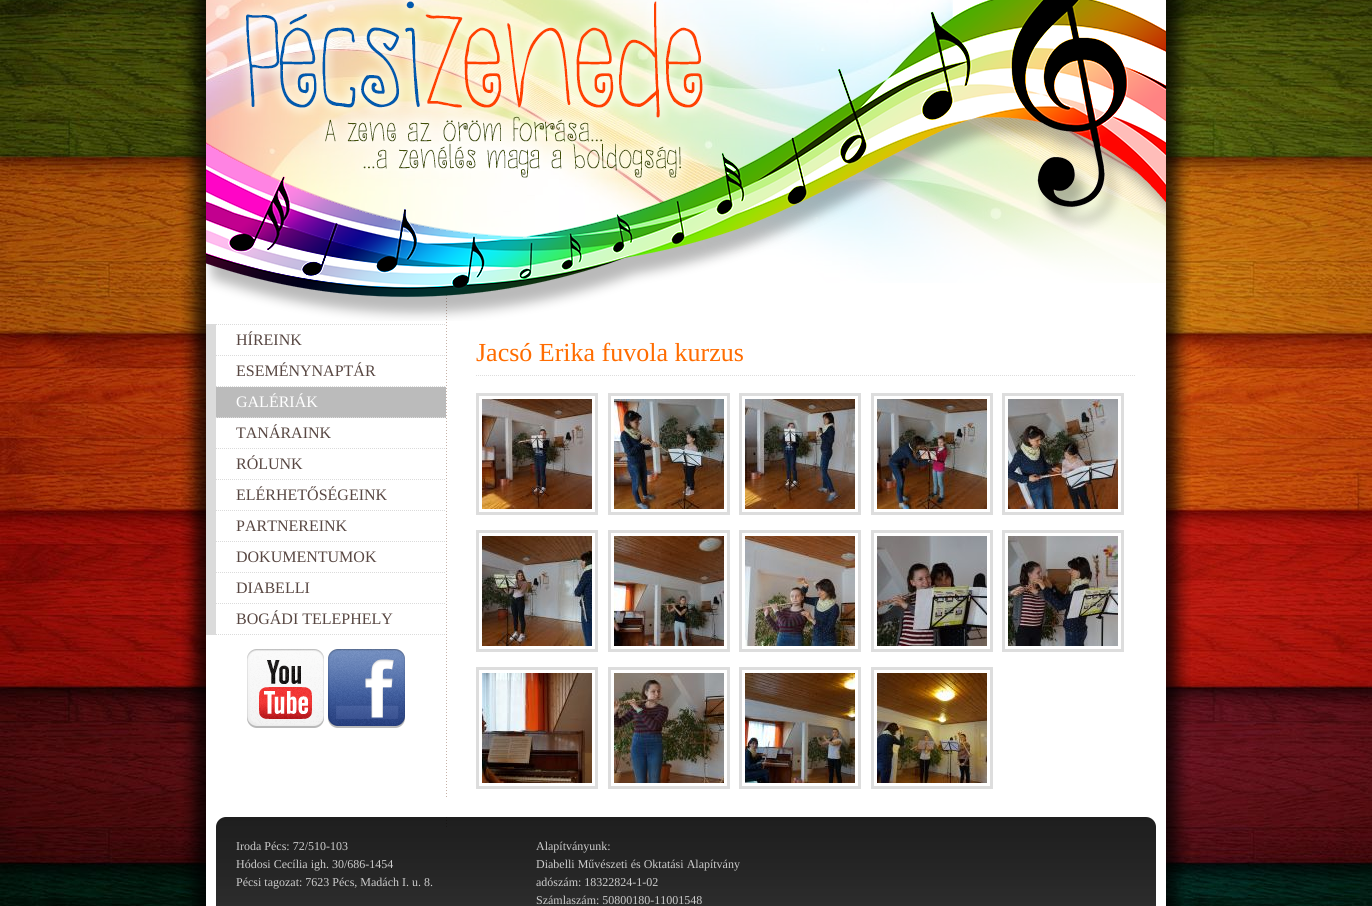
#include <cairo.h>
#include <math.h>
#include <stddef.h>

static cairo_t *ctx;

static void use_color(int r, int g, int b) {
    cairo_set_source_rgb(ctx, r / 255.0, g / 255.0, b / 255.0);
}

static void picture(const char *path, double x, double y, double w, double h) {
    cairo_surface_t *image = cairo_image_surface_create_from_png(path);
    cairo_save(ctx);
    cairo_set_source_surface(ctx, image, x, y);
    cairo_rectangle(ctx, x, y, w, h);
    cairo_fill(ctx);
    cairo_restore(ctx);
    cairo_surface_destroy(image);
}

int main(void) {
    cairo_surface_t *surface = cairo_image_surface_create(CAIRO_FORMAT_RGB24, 1372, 906);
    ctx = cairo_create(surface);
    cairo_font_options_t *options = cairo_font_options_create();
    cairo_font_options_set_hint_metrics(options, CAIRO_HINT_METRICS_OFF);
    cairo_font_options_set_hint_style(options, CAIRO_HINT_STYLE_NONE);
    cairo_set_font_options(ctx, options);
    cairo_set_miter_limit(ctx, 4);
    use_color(255, 255, 255);
    cairo_paint(ctx);
    picture("img1.png", 0, 0, 1372, 906);
    picture("img2.png", 181, 0, 1010, 906);
    picture("img3.png", 206, 0, 960, 321);
    use_color(219, 219, 219);
    cairo_rectangle(ctx, 206, 324, 10, 311);
    cairo_fill(ctx);
    cairo_new_path(ctx);
    cairo_move_to(ctx, 216, 324.5);
    cairo_line_to(ctx, 446, 324.5);
    cairo_set_line_width(ctx, 1);
    cairo_set_dash(ctx, (double[]){1, 1}, 2, 0);
    cairo_stroke(ctx);
    cairo_new_path(ctx);
    cairo_move_to(ctx, 216, 355.5);
    cairo_line_to(ctx, 446, 355.5);
    cairo_stroke(ctx);
    cairo_select_font_face(ctx, "Liberation Serif", CAIRO_FONT_SLANT_NORMAL, CAIRO_FONT_WEIGHT_NORMAL);
    cairo_set_font_size(ctx, 16);
    use_color(88, 71, 66);
    cairo_move_to(ctx, 236, 345);
    cairo_show_text(ctx, "HÍREINK");
    cairo_new_path(ctx);
    cairo_move_to(ctx, 216, 386.5);
    cairo_line_to(ctx, 446, 386.5);
    use_color(219, 219, 219);
    cairo_stroke(ctx);
    use_color(88, 71, 66);
    cairo_move_to(ctx, 236, 376);
    cairo_show_text(ctx, "ESEMÉNYNAPTÁR");
    use_color(187, 187, 187);
    cairo_rectangle(ctx, 216, 387, 230, 31);
    cairo_fill(ctx);
    cairo_new_path(ctx);
    cairo_move_to(ctx, 216, 417.5);
    cairo_line_to(ctx, 446, 417.5);
    use_color(219, 219, 219);
    cairo_stroke(ctx);
    use_color(255, 255, 255);
    cairo_move_to(ctx, 236, 407);
    cairo_show_text(ctx, "GALÉRIÁK");
    cairo_new_path(ctx);
    cairo_move_to(ctx, 216, 448.5);
    cairo_line_to(ctx, 446, 448.5);
    use_color(219, 219, 219);
    cairo_stroke(ctx);
    use_color(88, 71, 66);
    cairo_move_to(ctx, 236, 438);
    cairo_show_text(ctx, "TANÁRAINK");
    cairo_new_path(ctx);
    cairo_move_to(ctx, 216, 479.5);
    cairo_line_to(ctx, 446, 479.5);
    use_color(219, 219, 219);
    cairo_stroke(ctx);
    use_color(88, 71, 66);
    cairo_move_to(ctx, 236, 469);
    cairo_show_text(ctx, "RÓLUNK");
    cairo_new_path(ctx);
    cairo_move_to(ctx, 216, 510.5);
    cairo_line_to(ctx, 446, 510.5);
    use_color(219, 219, 219);
    cairo_stroke(ctx);
    use_color(88, 71, 66);
    cairo_move_to(ctx, 236, 500);
    cairo_show_text(ctx, "ELÉRHETŐSÉGEINK");
    cairo_new_path(ctx);
    cairo_move_to(ctx, 216, 541.5);
    cairo_line_to(ctx, 446, 541.5);
    use_color(219, 219, 219);
    cairo_stroke(ctx);
    use_color(88, 71, 66);
    cairo_move_to(ctx, 236, 531);
    cairo_show_text(ctx, "PARTNEREINK");
    cairo_new_path(ctx);
    cairo_move_to(ctx, 216, 572.5);
    cairo_line_to(ctx, 446, 572.5);
    use_color(219, 219, 219);
    cairo_stroke(ctx);
    use_color(88, 71, 66);
    cairo_move_to(ctx, 236, 562);
    cairo_show_text(ctx, "DOKUMENTUMOK");
    cairo_new_path(ctx);
    cairo_move_to(ctx, 216, 603.5);
    cairo_line_to(ctx, 446, 603.5);
    use_color(219, 219, 219);
    cairo_stroke(ctx);
    use_color(88, 71, 66);
    cairo_move_to(ctx, 236, 593);
    cairo_show_text(ctx, "DIABELLI");
    cairo_new_path(ctx);
    cairo_move_to(ctx, 216, 634.5);
    cairo_line_to(ctx, 446, 634.5);
    use_color(219, 219, 219);
    cairo_stroke(ctx);
    use_color(88, 71, 66);
    cairo_move_to(ctx, 236, 624);
    cairo_show_text(ctx, "BOGÁDI TELEPHELY");
    picture("img4.png", 247, 649, 77, 79);
    picture("img5.png", 328, 649, 77, 79);
    cairo_set_font_size(ctx, 26);
    use_color(255, 108, 0);
    cairo_move_to(ctx, 476, 361);
    cairo_show_text(ctx, "Jacsó Erika fuvola kurzus");
    cairo_new_path(ctx);
    cairo_move_to(ctx, 476, 375.5);
    cairo_line_to(ctx, 1136, 375.5);
    use_color(221, 221, 221);
    cairo_stroke(ctx);
    cairo_rectangle(ctx, 477.5, 394.5, 119, 119);
    cairo_set_line_width(ctx, 3);
    cairo_set_dash(ctx, NULL, 0, 0);
    cairo_stroke(ctx);
    cairo_rectangle(ctx, 609.5, 394.5, 119, 119);
    cairo_stroke(ctx);
    cairo_rectangle(ctx, 740.5, 394.5, 119, 119);
    cairo_stroke(ctx);
    cairo_rectangle(ctx, 872.5, 394.5, 119, 119);
    cairo_stroke(ctx);
    cairo_rectangle(ctx, 1003.5, 394.5, 119, 119);
    cairo_stroke(ctx);
    picture("img6.png", 482, 399, 110, 110);
    picture("img7.png", 614, 399, 110, 110);
    picture("img8.png", 745, 399, 110, 110);
    picture("img9.png", 877, 399, 110, 110);
    picture("img10.png", 1008, 399, 110, 110);
    cairo_rectangle(ctx, 477.5, 531.5, 119, 119);
    cairo_stroke(ctx);
    cairo_rectangle(ctx, 609.5, 531.5, 119, 119);
    cairo_stroke(ctx);
    cairo_rectangle(ctx, 740.5, 531.5, 119, 119);
    cairo_stroke(ctx);
    cairo_rectangle(ctx, 872.5, 531.5, 119, 119);
    cairo_stroke(ctx);
    cairo_rectangle(ctx, 1003.5, 531.5, 119, 119);
    cairo_stroke(ctx);
    picture("img11.png", 482, 536, 110, 110);
    picture("img12.png", 614, 536, 110, 110);
    picture("img13.png", 745, 536, 110, 110);
    picture("img14.png", 877, 536, 110, 110);
    picture("img15.png", 1008, 536, 110, 110);
    cairo_rectangle(ctx, 477.5, 668.5, 119, 119);
    cairo_stroke(ctx);
    cairo_rectangle(ctx, 609.5, 668.5, 119, 119);
    cairo_stroke(ctx);
    cairo_rectangle(ctx, 740.5, 668.5, 119, 119);
    cairo_stroke(ctx);
    cairo_rectangle(ctx, 872.5, 668.5, 119, 119);
    cairo_stroke(ctx);
    picture("img16.png", 482, 673, 110, 110);
    picture("img17.png", 614, 673, 110, 110);
    picture("img18.png", 745, 673, 110, 110);
    picture("img19.png", 877, 673, 110, 110);
    picture("img20.png", 216, 817, 940, 89);
    use_color(255, 255, 255);
    cairo_rectangle(ctx, 446, 799, 1, 16);
    cairo_fill(ctx);
    cairo_set_font_size(ctx, 12);
    use_color(204, 204, 204);
    cairo_move_to(ctx, 236, 850);
    cairo_show_text(ctx, "Iroda Pécs: 72/510-103");
    cairo_move_to(ctx, 236, 868);
    cairo_show_text(ctx, "Hódosi Cecília igh. 30/686-1454");
    cairo_move_to(ctx, 236, 886);
    cairo_show_text(ctx, "Pécsi tagozat: 7623 Pécs, Madách I. u. 8.");
    cairo_move_to(ctx, 536, 850);
    cairo_show_text(ctx, "Alapítványunk:");
    cairo_move_to(ctx, 536, 868);
    cairo_show_text(ctx, "Diabelli Művészeti és Oktatási Alapítvány");
    cairo_move_to(ctx, 536, 886);
    cairo_show_text(ctx, "adószám: 18322824-1-02");
    cairo_move_to(ctx, 536, 904);
    cairo_show_text(ctx, "Számlaszám: 50800180-11001548");
    cairo_surface_write_to_png(surface, "result.png");
    cairo_font_options_destroy(options);
    cairo_destroy(ctx);
    cairo_surface_destroy(surface);
    return 0;
}
